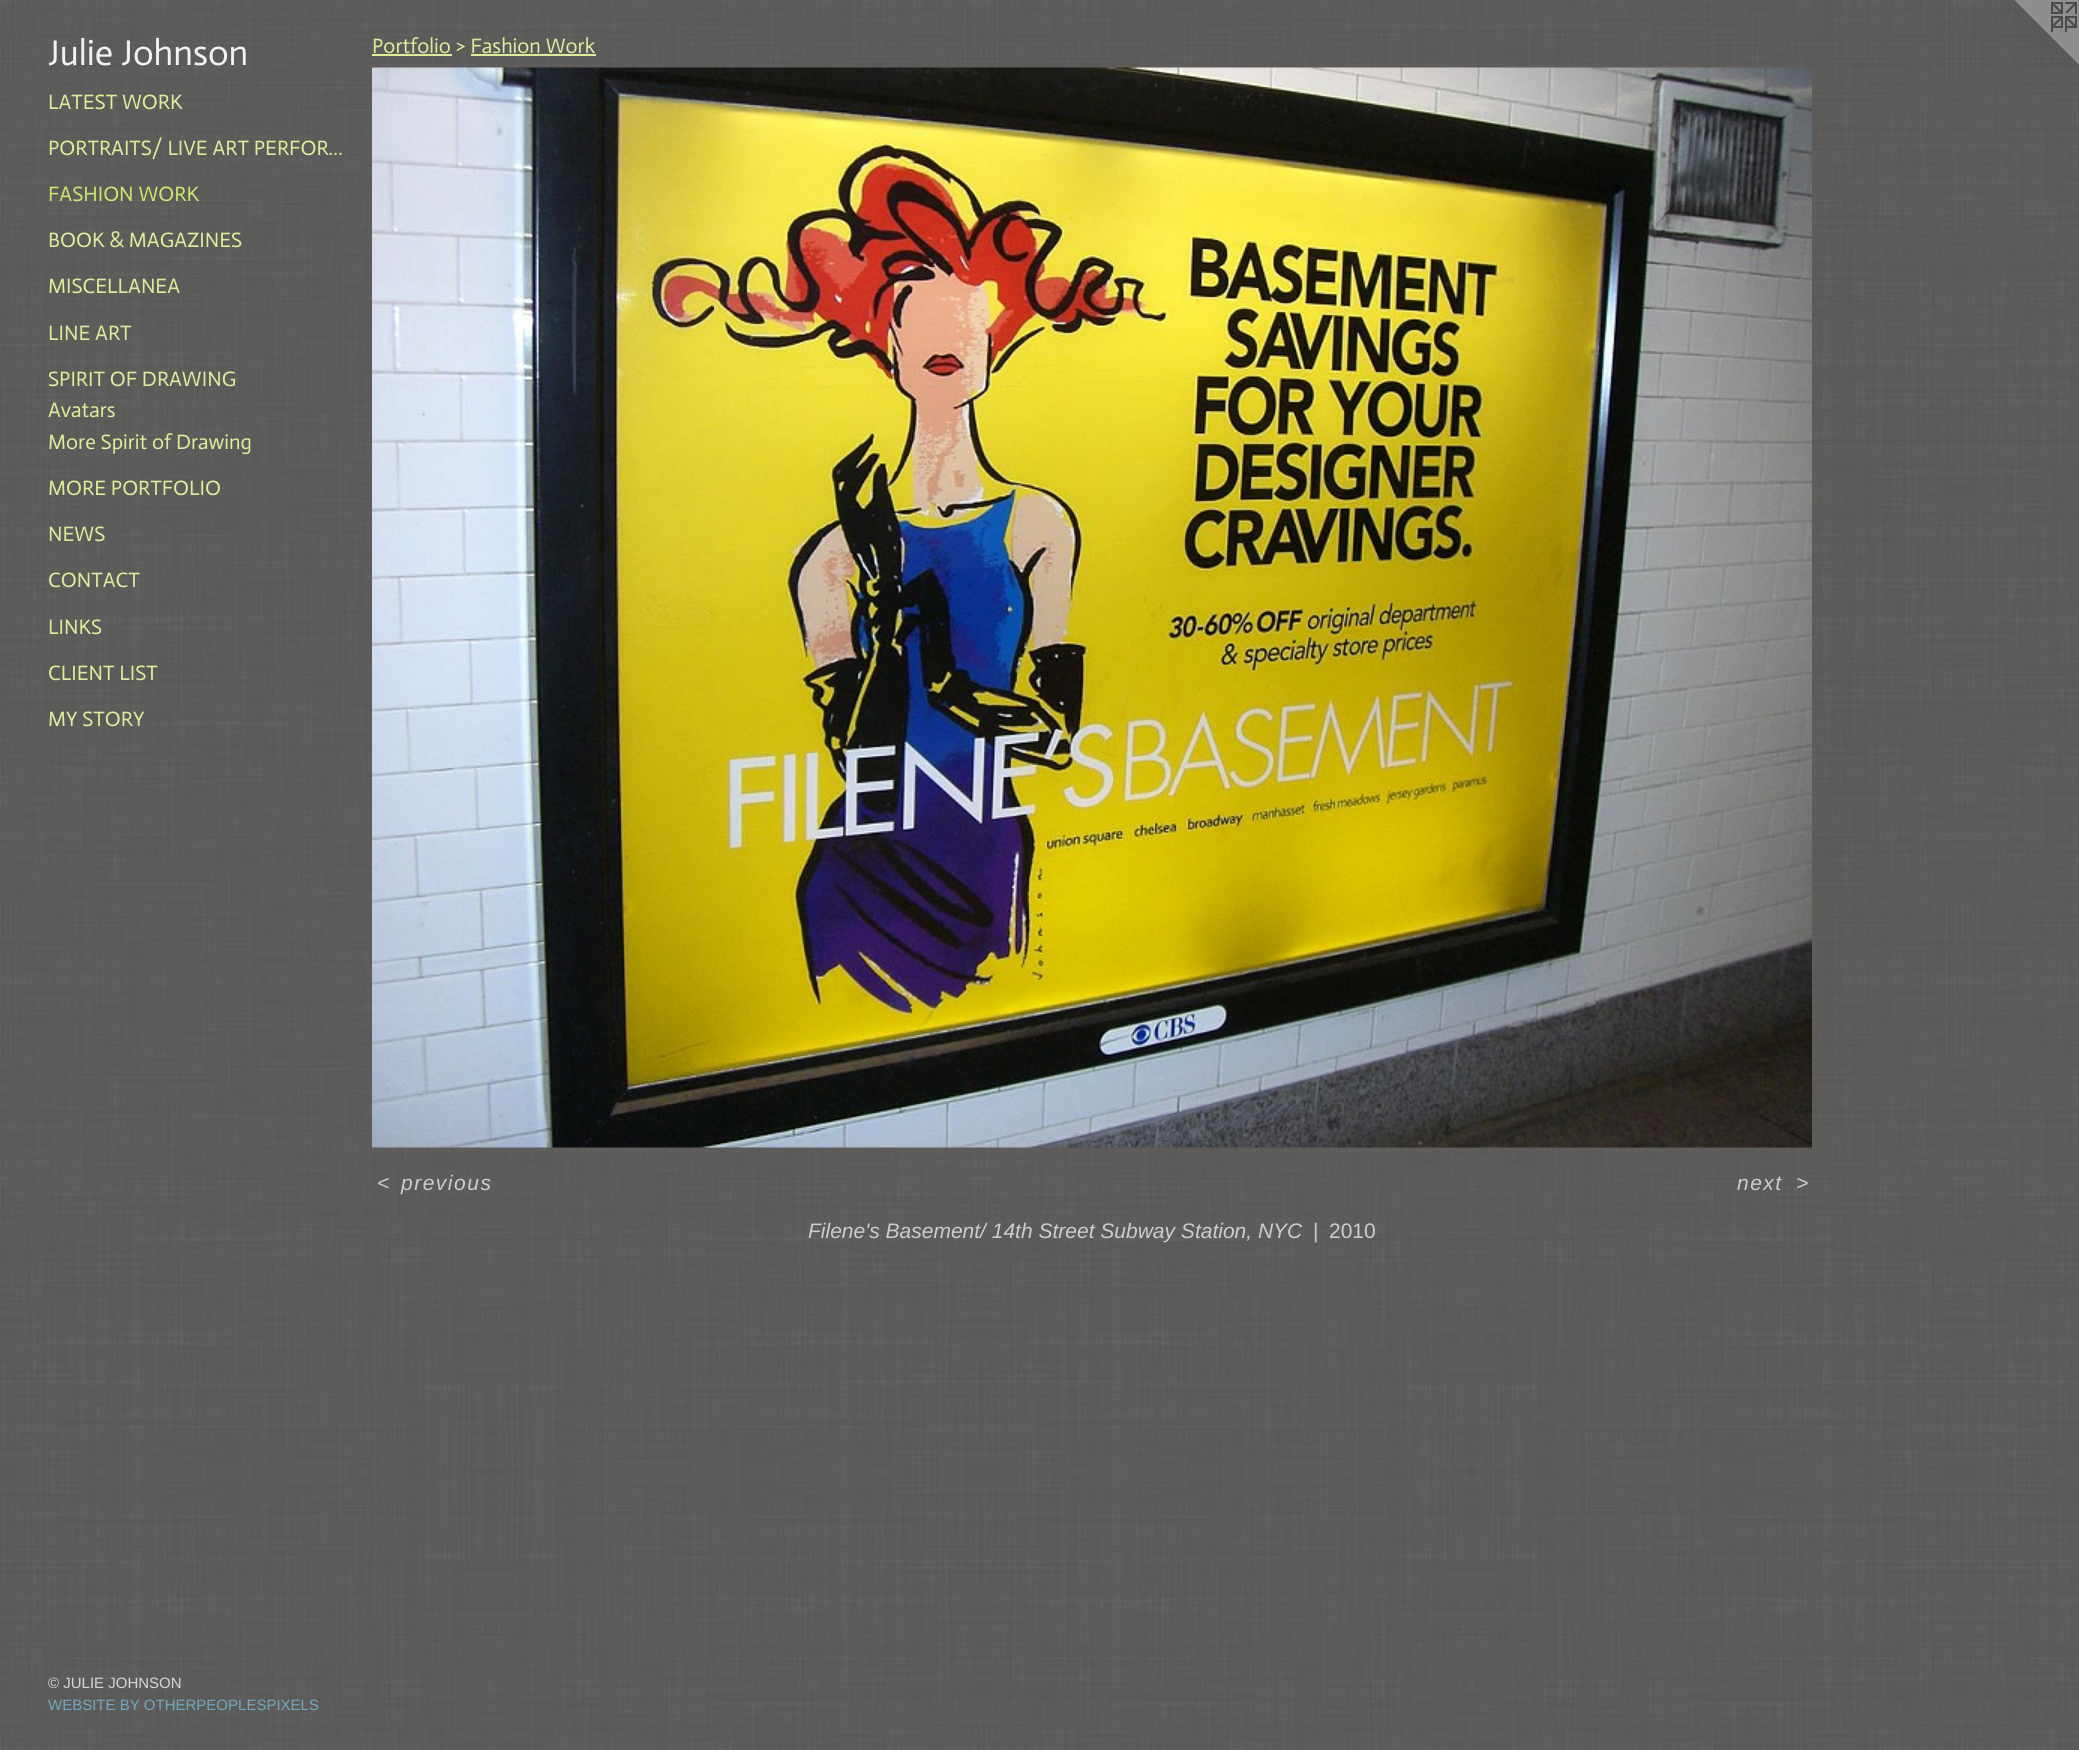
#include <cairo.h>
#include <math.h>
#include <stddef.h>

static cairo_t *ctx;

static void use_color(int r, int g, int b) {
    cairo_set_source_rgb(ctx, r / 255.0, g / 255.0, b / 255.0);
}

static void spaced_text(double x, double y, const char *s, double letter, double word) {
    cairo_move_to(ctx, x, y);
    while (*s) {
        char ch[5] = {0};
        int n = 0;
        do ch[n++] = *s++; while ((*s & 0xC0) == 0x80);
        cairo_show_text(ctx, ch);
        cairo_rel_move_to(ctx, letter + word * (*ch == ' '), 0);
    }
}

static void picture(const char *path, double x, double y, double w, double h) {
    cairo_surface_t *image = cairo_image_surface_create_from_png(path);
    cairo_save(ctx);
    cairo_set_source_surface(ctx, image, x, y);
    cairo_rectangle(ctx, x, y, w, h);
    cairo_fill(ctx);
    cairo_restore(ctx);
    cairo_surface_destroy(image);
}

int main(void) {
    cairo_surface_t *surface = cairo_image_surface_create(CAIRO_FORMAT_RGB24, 2079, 1750);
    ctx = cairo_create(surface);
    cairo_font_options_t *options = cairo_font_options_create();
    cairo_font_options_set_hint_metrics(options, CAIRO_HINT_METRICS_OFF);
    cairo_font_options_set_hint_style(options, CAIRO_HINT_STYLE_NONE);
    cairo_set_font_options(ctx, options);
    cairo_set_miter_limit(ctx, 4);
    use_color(255, 255, 255);
    cairo_paint(ctx);
    picture("img1.png", 0, 0, 2079, 1750);
    cairo_select_font_face(ctx, "Actor", CAIRO_FONT_SLANT_NORMAL, CAIRO_FONT_WEIGHT_NORMAL);
    cairo_set_font_size(ctx, 36);
    use_color(243, 242, 242);
    cairo_move_to(ctx, 48, 65);
    cairo_show_text(ctx, "Julie Johnson");
    cairo_set_font_size(ctx, 21);
    use_color(219, 238, 155);
    cairo_move_to(ctx, 48, 109);
    cairo_show_text(ctx, "LATEST WORK");
    cairo_move_to(ctx, 48, 155);
    cairo_show_text(ctx, "PORTRAITS/ LIVE ART PERFOR…");
    use_color(203, 231, 111);
    cairo_move_to(ctx, 48, 201);
    cairo_show_text(ctx, "FASHION WORK");
    use_color(219, 238, 155);
    cairo_move_to(ctx, 48, 247);
    cairo_show_text(ctx, "BOOK & MAGAZINES");
    cairo_move_to(ctx, 48, 293);
    cairo_show_text(ctx, "MISCELLANEA");
    cairo_move_to(ctx, 48, 340);
    cairo_show_text(ctx, "LINE ART");
    cairo_move_to(ctx, 48, 386);
    cairo_show_text(ctx, "SPIRIT OF DRAWING");
    cairo_move_to(ctx, 48, 417);
    cairo_show_text(ctx, "Avatars");
    cairo_move_to(ctx, 48, 449);
    cairo_show_text(ctx, "More Spirit of Drawing");
    cairo_move_to(ctx, 48, 495);
    cairo_show_text(ctx, "MORE PORTFOLIO");
    cairo_move_to(ctx, 48, 541);
    cairo_show_text(ctx, "NEWS");
    cairo_move_to(ctx, 48, 587);
    cairo_show_text(ctx, "CONTACT");
    cairo_move_to(ctx, 48, 634);
    cairo_show_text(ctx, "LINKS");
    cairo_move_to(ctx, 48, 680);
    cairo_show_text(ctx, "CLIENT LIST");
    cairo_move_to(ctx, 48, 726);
    cairo_show_text(ctx, "MY STORY");
    cairo_select_font_face(ctx, "Liberation Sans", CAIRO_FONT_SLANT_NORMAL, CAIRO_FONT_WEIGHT_NORMAL);
    cairo_set_font_size(ctx, 15);
    use_color(214, 214, 214);
    cairo_move_to(ctx, 48, 1688);
    cairo_show_text(ctx, "© JULIE JOHNSON");
    use_color(112, 168, 192);
    cairo_move_to(ctx, 48, 1710);
    cairo_show_text(ctx, "WEBSITE BY OTHERPEOPLESPIXELS");
    cairo_select_font_face(ctx, "Actor", CAIRO_FONT_SLANT_NORMAL, CAIRO_FONT_WEIGHT_NORMAL);
    cairo_set_font_size(ctx, 21);
    use_color(219, 238, 155);
    cairo_move_to(ctx, 372, 53);
    cairo_show_text(ctx, "Portfolio > Fashion Work");
    cairo_rectangle(ctx, 372, 54, 80, 2);
    cairo_fill(ctx);
    cairo_rectangle(ctx, 471, 54, 125, 2);
    cairo_fill(ctx);
    picture("img2.png", 372, 67, 1440, 1081);
    cairo_select_font_face(ctx, "Liberation Sans", CAIRO_FONT_SLANT_ITALIC, CAIRO_FONT_WEIGHT_NORMAL);
    use_color(205, 205, 203);
    spaced_text(377, 1190, "<", 1.5, 0);
    spaced_text(401, 1190, "previous", 1.5, 0);
    spaced_text(1737, 1190, "next", 1.5, 0);
    spaced_text(1796, 1190, ">", 1.5, 0);
    cairo_move_to(ctx, 808, 1238);
    cairo_show_text(ctx, "Filene's Basement/ 14th Street Subway Station, NYC");
    cairo_select_font_face(ctx, "Liberation Sans", CAIRO_FONT_SLANT_NORMAL, CAIRO_FONT_WEIGHT_NORMAL);
    cairo_move_to(ctx, 1313, 1238);
    cairo_show_text(ctx, "|");
    cairo_move_to(ctx, 1329, 1238);
    cairo_show_text(ctx, "2010");
    picture("img3.png", 2014, 0, 65, 65);
    cairo_surface_write_to_png(surface, "result.png");
    cairo_font_options_destroy(options);
    cairo_destroy(ctx);
    cairo_surface_destroy(surface);
    return 0;
}
